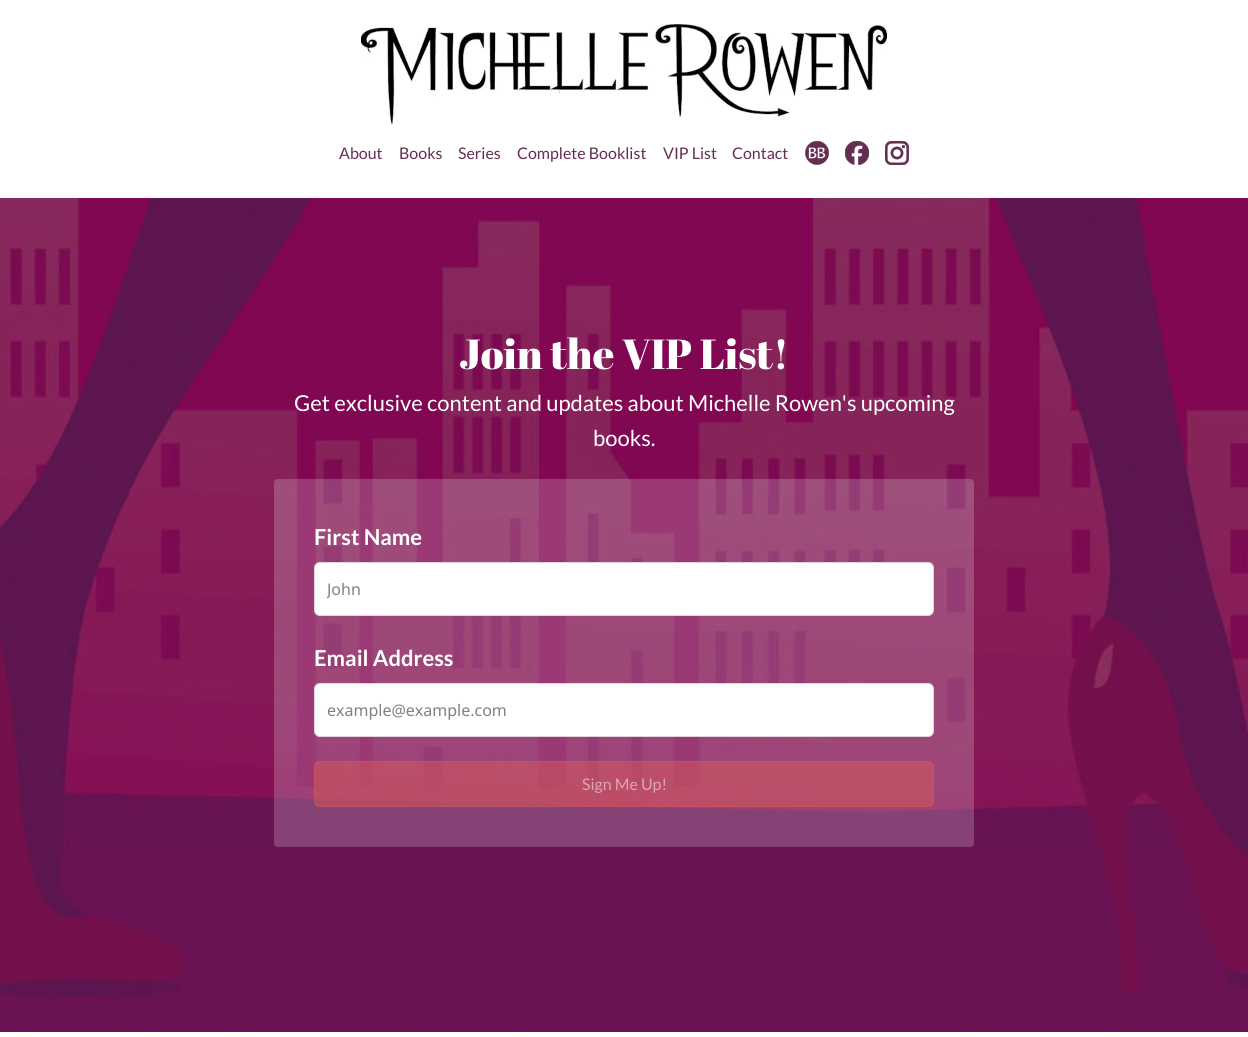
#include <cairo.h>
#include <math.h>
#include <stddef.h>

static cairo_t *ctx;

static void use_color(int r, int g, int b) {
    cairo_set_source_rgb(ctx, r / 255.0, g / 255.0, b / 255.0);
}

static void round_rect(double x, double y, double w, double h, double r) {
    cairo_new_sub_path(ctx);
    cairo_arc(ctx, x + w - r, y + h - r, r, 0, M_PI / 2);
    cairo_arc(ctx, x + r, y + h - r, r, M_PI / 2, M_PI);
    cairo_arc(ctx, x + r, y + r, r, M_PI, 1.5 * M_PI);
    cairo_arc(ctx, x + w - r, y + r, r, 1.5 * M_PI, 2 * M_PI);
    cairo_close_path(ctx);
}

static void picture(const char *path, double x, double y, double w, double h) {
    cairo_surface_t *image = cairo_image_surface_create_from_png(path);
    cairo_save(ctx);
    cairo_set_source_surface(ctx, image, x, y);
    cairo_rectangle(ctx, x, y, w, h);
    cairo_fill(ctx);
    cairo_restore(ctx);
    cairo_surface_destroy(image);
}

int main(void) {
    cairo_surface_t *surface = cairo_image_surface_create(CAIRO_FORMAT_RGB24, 1248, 1037);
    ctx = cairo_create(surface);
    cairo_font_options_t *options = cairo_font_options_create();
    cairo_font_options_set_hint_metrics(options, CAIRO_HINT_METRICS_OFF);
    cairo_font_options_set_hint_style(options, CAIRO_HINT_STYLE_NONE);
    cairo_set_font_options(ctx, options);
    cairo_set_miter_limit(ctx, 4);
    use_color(255, 255, 255);
    cairo_paint(ctx);
    picture("img1.png", 361, 24, 526, 100);
    cairo_select_font_face(ctx, "Lato", CAIRO_FONT_SLANT_NORMAL, CAIRO_FONT_WEIGHT_NORMAL);
    cairo_set_font_size(ctx, 16);
    use_color(99, 46, 80);
    cairo_move_to(ctx, 339, 159);
    cairo_show_text(ctx, "About");
    cairo_move_to(ctx, 399, 159);
    cairo_show_text(ctx, "Books");
    cairo_move_to(ctx, 458, 159);
    cairo_show_text(ctx, "Series");
    cairo_move_to(ctx, 517, 159);
    cairo_show_text(ctx, "Complete Booklist");
    cairo_move_to(ctx, 663, 159);
    cairo_show_text(ctx, "VIP List");
    cairo_move_to(ctx, 732, 159);
    cairo_show_text(ctx, "Contact");
    picture("img2.png", 805, 141, 24, 24);
    picture("img3.png", 845, 141, 24, 24);
    picture("img4.png", 885, 141, 24, 24);
    use_color(0, 0, 0);
    cairo_rectangle(ctx, 0, 198, 1248, 834);
    cairo_fill(ctx);
    picture("img5.png", 0, 198, 1248, 834);
    cairo_select_font_face(ctx, "Abril Fatface", CAIRO_FONT_SLANT_NORMAL, CAIRO_FONT_WEIGHT_NORMAL);
    cairo_set_font_size(ctx, 42);
    use_color(255, 255, 255);
    cairo_move_to(ctx, 459, 369);
    cairo_show_text(ctx, "Join the VIP List!");
    cairo_select_font_face(ctx, "Lato", CAIRO_FONT_SLANT_NORMAL, CAIRO_FONT_WEIGHT_NORMAL);
    cairo_set_font_size(ctx, 22);
    cairo_move_to(ctx, 294, 411);
    cairo_show_text(ctx, "Get exclusive content and updates about Michelle Rowen's upcoming");
    cairo_move_to(ctx, 593, 446);
    cairo_show_text(ctx, "books.");
    cairo_set_source_rgba(ctx, 1, 1, 1, 0.2);
    round_rect(274, 479, 700, 368, 4);
    cairo_fill(ctx);
    cairo_select_font_face(ctx, "Lato", CAIRO_FONT_SLANT_NORMAL, CAIRO_FONT_WEIGHT_BOLD);
    use_color(255, 255, 255);
    cairo_move_to(ctx, 314, 545);
    cairo_show_text(ctx, "First Name");
    round_rect(314.5, 562.5, 619, 53, 5.5);
    cairo_fill_preserve(ctx);
    use_color(224, 213, 220);
    cairo_set_line_width(ctx, 1);
    cairo_stroke(ctx);
    cairo_save(ctx);
    cairo_rectangle(ctx, 327, 578, 594, 22);
    cairo_clip(ctx);
    cairo_select_font_face(ctx, "Noto Sans", CAIRO_FONT_SLANT_NORMAL, CAIRO_FONT_WEIGHT_NORMAL);
    cairo_set_font_size(ctx, 16);
    use_color(128, 128, 128);
    cairo_move_to(ctx, 327, 595);
    cairo_show_text(ctx, "John");
    cairo_restore(ctx);
    use_color(255, 255, 255);
    cairo_move_to(ctx, 314, 666);
    cairo_show_text(ctx, "Email Address");
    round_rect(314.5, 683.5, 619, 53, 5.5);
    cairo_fill_preserve(ctx);
    use_color(224, 213, 220);
    cairo_stroke(ctx);
    cairo_select_font_face(ctx, "Noto Sans", CAIRO_FONT_SLANT_NORMAL, CAIRO_FONT_WEIGHT_NORMAL);
    cairo_set_font_size(ctx, 16);
    use_color(128, 128, 128);
    cairo_move_to(ctx, 327, 716);
    cairo_show_text(ctx, "example@example.com");
    cairo_set_source_rgba(ctx, 0.847, 0.353, 0.349, 0.5);
    round_rect(314, 761, 620, 46, 6);
    cairo_fill(ctx);
    round_rect(314.5, 761.5, 619, 45, 5.5);
    cairo_stroke(ctx);
    cairo_select_font_face(ctx, "Lato", CAIRO_FONT_SLANT_NORMAL, CAIRO_FONT_WEIGHT_NORMAL);
    use_color(221, 166, 180);
    cairo_move_to(ctx, 582, 790);
    cairo_show_text(ctx, "Sign Me Up!");
    cairo_surface_write_to_png(surface, "result.png");
    cairo_font_options_destroy(options);
    cairo_destroy(ctx);
    cairo_surface_destroy(surface);
    return 0;
}
